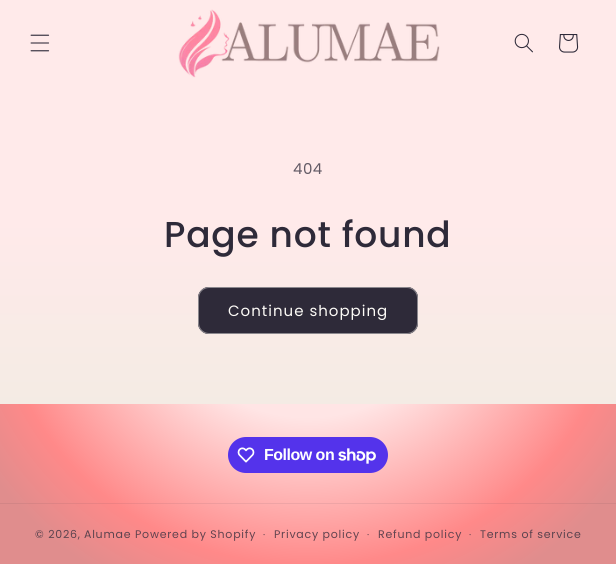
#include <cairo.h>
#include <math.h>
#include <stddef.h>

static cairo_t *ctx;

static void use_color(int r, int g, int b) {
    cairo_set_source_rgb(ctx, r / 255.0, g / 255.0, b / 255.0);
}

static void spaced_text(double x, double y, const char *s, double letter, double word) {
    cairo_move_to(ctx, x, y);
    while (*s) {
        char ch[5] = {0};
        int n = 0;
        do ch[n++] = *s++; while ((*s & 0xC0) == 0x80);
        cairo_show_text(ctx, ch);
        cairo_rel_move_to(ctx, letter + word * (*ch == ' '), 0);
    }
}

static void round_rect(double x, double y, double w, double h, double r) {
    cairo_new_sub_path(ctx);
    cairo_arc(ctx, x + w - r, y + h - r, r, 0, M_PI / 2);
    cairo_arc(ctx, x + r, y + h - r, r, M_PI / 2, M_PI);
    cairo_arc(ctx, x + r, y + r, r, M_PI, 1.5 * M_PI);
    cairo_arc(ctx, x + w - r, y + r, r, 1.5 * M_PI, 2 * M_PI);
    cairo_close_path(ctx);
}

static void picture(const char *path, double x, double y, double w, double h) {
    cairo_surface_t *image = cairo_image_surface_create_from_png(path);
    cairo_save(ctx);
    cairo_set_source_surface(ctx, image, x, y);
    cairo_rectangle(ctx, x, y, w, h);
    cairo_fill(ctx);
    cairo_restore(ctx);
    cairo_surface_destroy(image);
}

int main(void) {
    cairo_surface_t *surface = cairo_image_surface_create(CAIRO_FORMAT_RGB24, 616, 564);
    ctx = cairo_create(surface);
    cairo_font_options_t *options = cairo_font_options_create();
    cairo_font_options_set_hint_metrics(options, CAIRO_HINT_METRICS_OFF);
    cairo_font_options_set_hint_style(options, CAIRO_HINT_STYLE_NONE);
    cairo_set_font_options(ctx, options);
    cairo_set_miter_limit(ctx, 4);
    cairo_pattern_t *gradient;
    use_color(255, 255, 255);
    cairo_paint(ctx);
    gradient = cairo_pattern_create_linear(308, 0, 308, 564);
    cairo_pattern_add_color_stop_rgba(gradient, 0.39, 1, 0.918, 0.918, 1);
    cairo_pattern_add_color_stop_rgba(gradient, 0.81, 0.945, 0.922, 0.886, 1);
    cairo_pattern_add_color_stop_rgba(gradient, 0.81, 0.945, 0.933, 0.89, 1);
    cairo_set_source(ctx, gradient);
    cairo_pattern_destroy(gradient);
    cairo_rectangle(ctx, 0, 0, 616, 404);
    cairo_fill(ctx);
    picture("img1.png", 30, 34, 20, 18);
    picture("img2.png", 178, 9, 262, 69);
    picture("img3.png", 514, 33, 19, 20);
    picture("img4.png", 559, 34, 20, 19);
    cairo_select_font_face(ctx, "Poppins", CAIRO_FONT_SLANT_NORMAL, CAIRO_FONT_WEIGHT_NORMAL);
    cairo_set_font_size(ctx, 15);
    use_color(98, 90, 101);
    spaced_text(293, 174, "404", 0.5, 0);
    cairo_select_font_face(ctx, "Poppins Medium", CAIRO_FONT_SLANT_NORMAL, CAIRO_FONT_WEIGHT_NORMAL);
    cairo_set_font_size(ctx, 36);
    use_color(46, 42, 57);
    spaced_text(164, 247, "Page not found", 0.75, 0);
    round_rect(198, 287, 220, 47, 11);
    cairo_fill(ctx);
    round_rect(198.5, 287.5, 219, 46, 10.5);
    cairo_set_line_width(ctx, 1);
    cairo_stroke(ctx);
    round_rect(198.5, 287.5, 219, 46, 10.5);
    cairo_set_source_rgba(ctx, 0.992, 0.984, 0.969, 0.45);
    cairo_stroke(ctx);
    cairo_select_font_face(ctx, "Poppins", CAIRO_FONT_SLANT_NORMAL, CAIRO_FONT_WEIGHT_NORMAL);
    cairo_set_font_size(ctx, 15);
    use_color(253, 251, 247);
    spaced_text(228, 316, "Continue shopping", 1, 0);
    gradient = cairo_pattern_create_radial(0, 0, 0, 0, 0, 1);
    cairo_pattern_set_matrix(gradient, &(cairo_matrix_t){1.0 / 436, 0, 0, 1.0 / 399, -1.0 * 308 / 436, -1.0 * 282 / 399});
    cairo_pattern_add_color_stop_rgba(gradient, 0.34, 1, 0.898, 0.898, 1);
    cairo_pattern_add_color_stop_rgba(gradient, 0.71, 1, 0.537, 0.537, 1);
    cairo_pattern_add_color_stop_rgba(gradient, 0.87, 0.878, 0.553, 0.553, 1);
    cairo_set_source(ctx, gradient);
    cairo_pattern_destroy(gradient);
    cairo_rectangle(ctx, 0, 404, 616, 160);
    cairo_fill(ctx);
    gradient = cairo_pattern_create_radial(0, 0, 0, 0, 0, 1);
    cairo_pattern_set_matrix(gradient, &(cairo_matrix_t){1.0 / 436, 0, 0, 1.0 / 399, -1.0 * 308 / 436, -1.0 * 282 / 399});
    cairo_pattern_add_color_stop_rgba(gradient, 0.34, 0.933, 0.839, 0.843, 1);
    cairo_pattern_add_color_stop_rgba(gradient, 0.71, 0.933, 0.506, 0.514, 1);
    cairo_pattern_add_color_stop_rgba(gradient, 0.87, 0.824, 0.522, 0.525, 1);
    cairo_set_source(ctx, gradient);
    cairo_pattern_destroy(gradient);
    cairo_rectangle(ctx, 0, 503, 616, 1);
    cairo_fill(ctx);
    use_color(84, 51, 235);
    round_rect(228, 437, 160, 36, 18);
    cairo_fill(ctx);
    picture("img5.png", 237, 447, 18, 16);
    cairo_select_font_face(ctx, "Liberation Sans", CAIRO_FONT_SLANT_NORMAL, CAIRO_FONT_WEIGHT_BOLD);
    cairo_set_font_size(ctx, 16);
    use_color(255, 255, 255);
    spaced_text(264, 460, "Follow on", -0.5, 0);
    picture("img6.png", 338, 448, 38, 16);
    cairo_select_font_face(ctx, "Poppins", CAIRO_FONT_SLANT_NORMAL, CAIRO_FONT_WEIGHT_NORMAL);
    cairo_set_font_size(ctx, 11);
    use_color(91, 67, 78);
    spaced_text(35, 538, "© 2026,", 0.75, 0);
    spaced_text(84, 538, "Alumae", 0.75, 0);
    use_color(98, 67, 79);
    spaced_text(135, 538, "Powered by Shopify", 0.75, 0);
    cairo_set_font_size(ctx, 10);
    spaced_text(263, 538, "·", 0.75, 0);
    cairo_set_font_size(ctx, 11);
    spaced_text(274, 538, "Privacy policy", 0.75, 0);
    cairo_set_font_size(ctx, 10);
    spaced_text(367, 538, "·", 0.75, 0);
    cairo_set_font_size(ctx, 11);
    spaced_text(378, 538, "Refund policy", 0.75, 0);
    cairo_set_font_size(ctx, 10);
    spaced_text(469, 538, "·", 0.75, 0);
    cairo_set_font_size(ctx, 11);
    use_color(91, 67, 78);
    spaced_text(480, 538, "Terms of service", 0.75, 0);
    cairo_surface_write_to_png(surface, "result.png");
    cairo_font_options_destroy(options);
    cairo_destroy(ctx);
    cairo_surface_destroy(surface);
    return 0;
}
